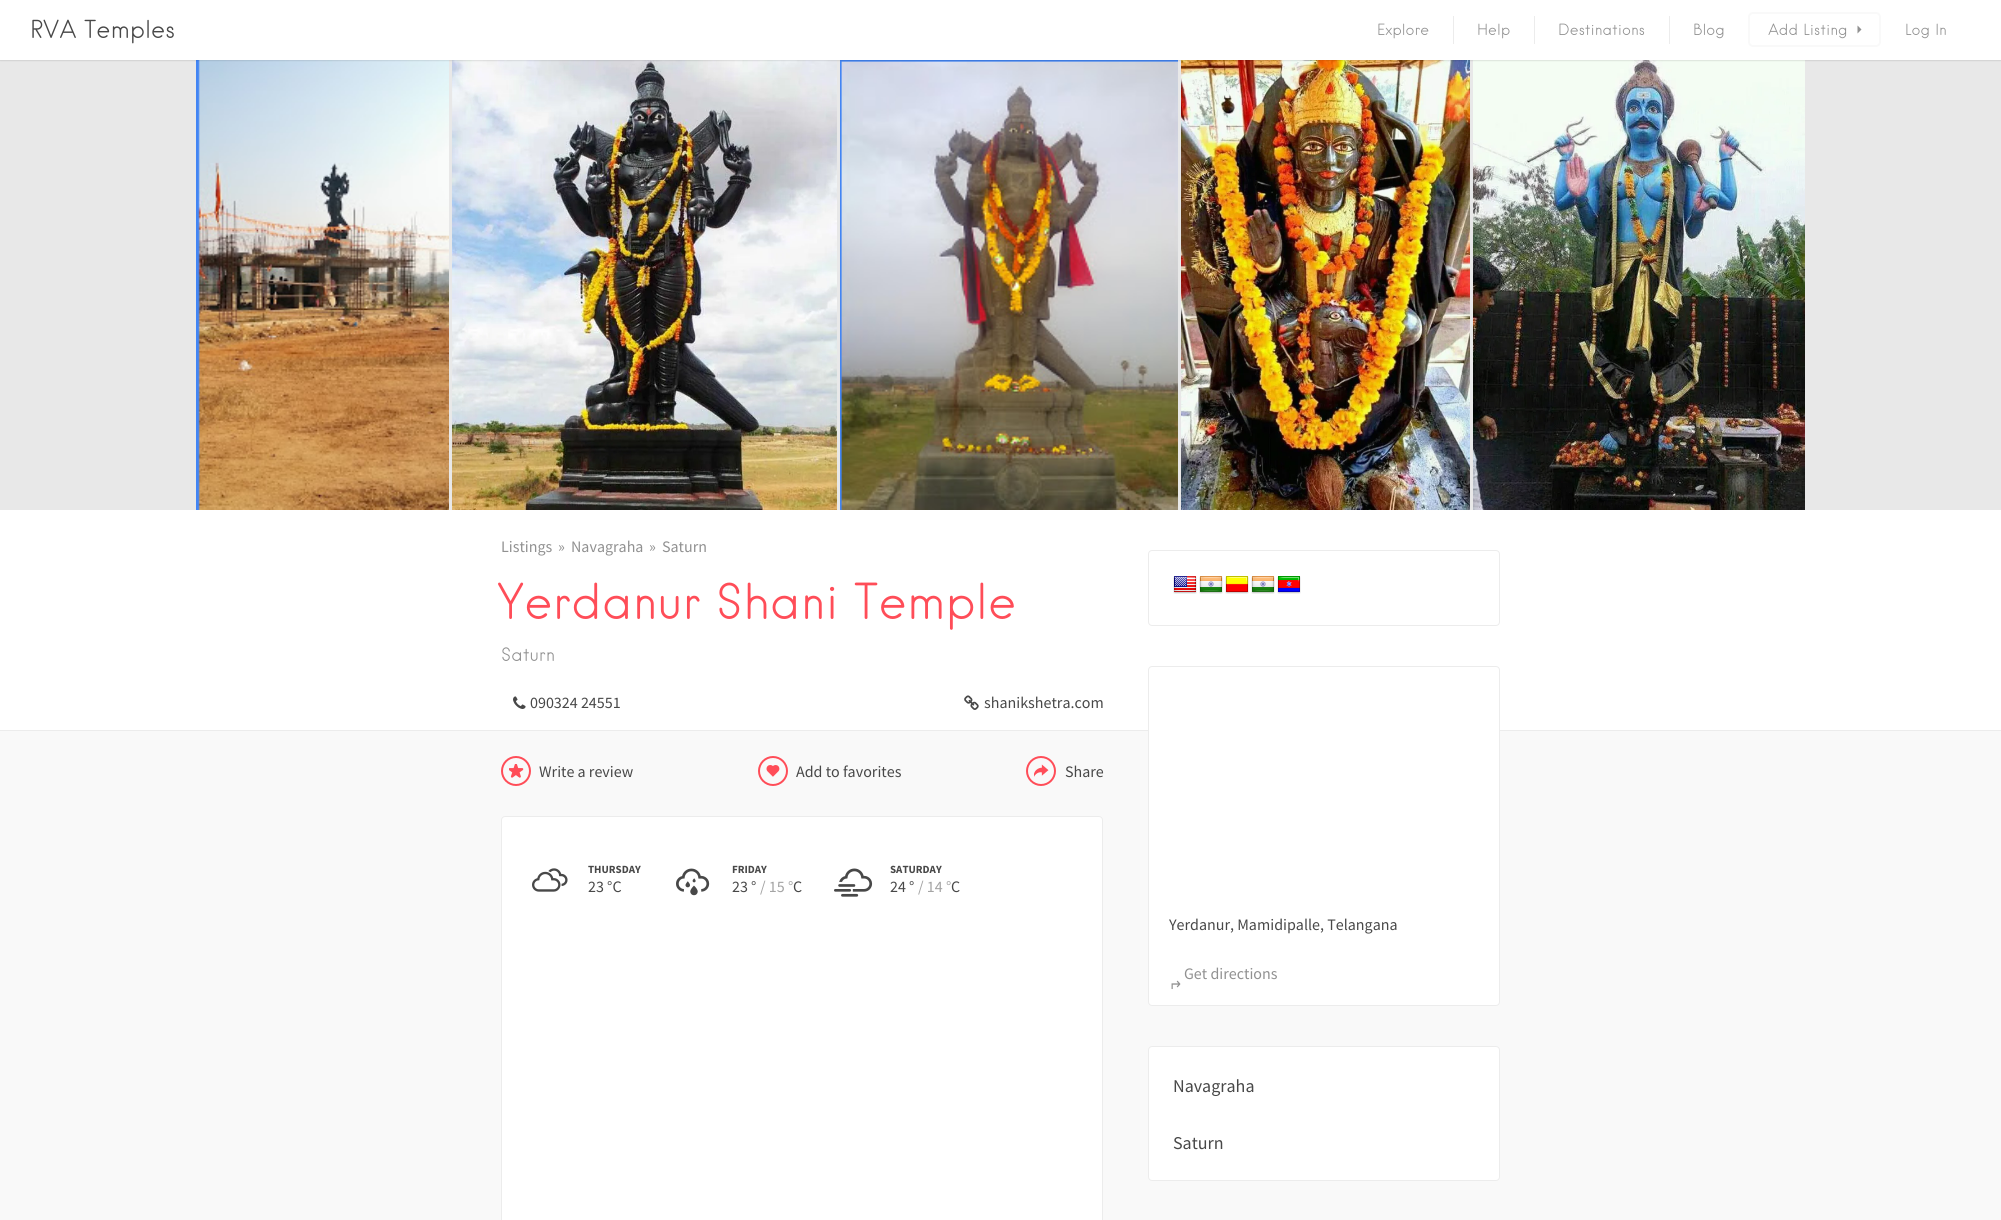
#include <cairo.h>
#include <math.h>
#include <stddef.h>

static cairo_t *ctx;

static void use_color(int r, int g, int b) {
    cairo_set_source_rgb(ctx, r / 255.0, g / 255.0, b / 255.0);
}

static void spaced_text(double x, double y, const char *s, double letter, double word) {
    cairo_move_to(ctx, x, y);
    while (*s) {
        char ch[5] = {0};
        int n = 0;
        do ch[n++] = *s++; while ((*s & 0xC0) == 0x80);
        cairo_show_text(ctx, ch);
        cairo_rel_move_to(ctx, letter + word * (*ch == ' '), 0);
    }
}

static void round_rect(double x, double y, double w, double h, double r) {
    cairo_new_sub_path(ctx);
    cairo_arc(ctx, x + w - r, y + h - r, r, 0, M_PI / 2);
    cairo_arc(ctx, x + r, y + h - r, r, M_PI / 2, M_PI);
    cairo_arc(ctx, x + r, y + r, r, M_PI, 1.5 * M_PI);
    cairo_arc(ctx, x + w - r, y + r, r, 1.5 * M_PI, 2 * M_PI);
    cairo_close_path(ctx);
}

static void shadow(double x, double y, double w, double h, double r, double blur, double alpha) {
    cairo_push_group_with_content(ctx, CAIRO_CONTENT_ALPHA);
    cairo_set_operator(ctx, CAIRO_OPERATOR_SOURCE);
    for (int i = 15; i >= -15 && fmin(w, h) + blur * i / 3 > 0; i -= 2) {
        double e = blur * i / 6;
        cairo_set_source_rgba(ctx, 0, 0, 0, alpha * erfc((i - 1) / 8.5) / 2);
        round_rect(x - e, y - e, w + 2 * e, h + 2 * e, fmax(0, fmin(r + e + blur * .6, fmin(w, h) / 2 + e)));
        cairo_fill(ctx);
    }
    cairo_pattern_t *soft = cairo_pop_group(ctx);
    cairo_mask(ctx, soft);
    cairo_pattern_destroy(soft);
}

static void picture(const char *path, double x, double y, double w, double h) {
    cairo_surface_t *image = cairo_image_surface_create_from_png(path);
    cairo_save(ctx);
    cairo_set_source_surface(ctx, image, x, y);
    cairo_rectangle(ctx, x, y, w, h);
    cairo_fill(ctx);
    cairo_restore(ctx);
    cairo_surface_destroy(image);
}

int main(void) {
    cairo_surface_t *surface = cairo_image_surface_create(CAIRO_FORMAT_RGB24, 2001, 1220);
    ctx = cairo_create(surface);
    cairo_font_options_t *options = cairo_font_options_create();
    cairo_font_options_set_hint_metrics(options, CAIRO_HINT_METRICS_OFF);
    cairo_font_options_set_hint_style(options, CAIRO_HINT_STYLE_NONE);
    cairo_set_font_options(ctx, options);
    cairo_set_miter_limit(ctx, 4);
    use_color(249, 249, 249);
    cairo_paint(ctx);
    use_color(232, 232, 232);
    cairo_rectangle(ctx, 0, 60, 2001, 450);
    cairo_fill(ctx);
    picture("img1.png", 196, 60, 253, 450);
    picture("img2.png", 452, 60, 385, 450);
    picture("img3.png", 840, 60, 338, 450);
    picture("img4.png", 1181, 60, 289, 450);
    picture("img5.png", 1473, 60, 332, 450);
    use_color(0, 0, 0);
    shadow(0, 0, 2001, 60, 0, 1, 0.25);
    use_color(255, 255, 255);
    cairo_rectangle(ctx, 0, 0, 2001, 60);
    cairo_fill(ctx);
    cairo_select_font_face(ctx, "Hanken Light", CAIRO_FONT_SLANT_NORMAL, CAIRO_FONT_WEIGHT_NORMAL);
    cairo_set_font_size(ctx, 24);
    use_color(72, 72, 72);
    spaced_text(30, 38, "RVA Temples", 0, -1);
    cairo_set_font_size(ctx, 15);
    use_color(145, 145, 145);
    cairo_move_to(ctx, 1377, 35);
    cairo_show_text(ctx, "Explore");
    use_color(236, 236, 236);
    cairo_rectangle(ctx, 1453, 16, 1, 28);
    cairo_fill(ctx);
    use_color(145, 145, 145);
    cairo_move_to(ctx, 1477, 35);
    cairo_show_text(ctx, "Help");
    use_color(236, 236, 236);
    cairo_rectangle(ctx, 1534, 16, 1, 28);
    cairo_fill(ctx);
    use_color(145, 145, 145);
    cairo_move_to(ctx, 1558, 35);
    cairo_show_text(ctx, "Destinations");
    use_color(236, 236, 236);
    cairo_rectangle(ctx, 1669, 16, 1, 28);
    cairo_fill(ctx);
    use_color(145, 145, 145);
    cairo_move_to(ctx, 1693, 35);
    cairo_show_text(ctx, "Blog");
    round_rect(1749, 13, 131, 33, 4);
    use_color(249, 249, 249);
    cairo_stroke(ctx);
    use_color(145, 145, 145);
    cairo_move_to(ctx, 1768, 35);
    cairo_show_text(ctx, "Add Listing");
    cairo_new_path(ctx);
    cairo_move_to(ctx, 1857.5, 33.5);
    cairo_line_to(ctx, 1857.5, 25.5);
    cairo_line_to(ctx, 1861.5, 29.5);
    cairo_close_path(ctx);
    cairo_fill(ctx);
    cairo_move_to(ctx, 1905, 35);
    cairo_show_text(ctx, "Log In");
    use_color(255, 255, 255);
    cairo_rectangle(ctx, 0, 510, 2001, 220);
    cairo_fill(ctx);
    use_color(236, 236, 236);
    cairo_rectangle(ctx, 0, 730, 2001, 1);
    cairo_fill(ctx);
    cairo_select_font_face(ctx, "Source Sans Pro", CAIRO_FONT_SLANT_NORMAL, CAIRO_FONT_WEIGHT_NORMAL);
    cairo_set_font_size(ctx, 16);
    use_color(145, 145, 145);
    cairo_move_to(ctx, 501, 552);
    cairo_show_text(ctx, "Listings");
    cairo_move_to(ctx, 558, 552);
    cairo_show_text(ctx, "»");
    cairo_move_to(ctx, 571, 552);
    cairo_show_text(ctx, "Navagraha");
    cairo_move_to(ctx, 649, 552);
    cairo_show_text(ctx, "»");
    cairo_move_to(ctx, 662, 552);
    cairo_show_text(ctx, "Saturn");
    cairo_select_font_face(ctx, "Hanken Light", CAIRO_FONT_SLANT_NORMAL, CAIRO_FONT_WEIGHT_NORMAL);
    cairo_set_font_size(ctx, 48);
    use_color(255, 77, 88);
    spaced_text(497, 619, "Yerdanur Shani Temple", 0, -2);
    cairo_set_font_size(ctx, 18);
    use_color(145, 145, 145);
    cairo_move_to(ctx, 501, 661);
    cairo_show_text(ctx, "Saturn");
    picture("img6.png", 513, 696, 13, 13);
    cairo_select_font_face(ctx, "Source Sans Pro", CAIRO_FONT_SLANT_NORMAL, CAIRO_FONT_WEIGHT_NORMAL);
    cairo_set_font_size(ctx, 16);
    use_color(72, 72, 72);
    cairo_move_to(ctx, 530, 708);
    cairo_show_text(ctx, "090324 24551");
    picture("img7.png", 964, 695, 15, 15);
    cairo_move_to(ctx, 984, 708);
    cairo_show_text(ctx, "shanikshetra.com");
    cairo_new_path(ctx);
    cairo_arc(ctx, 516, 771, 14, 0, 2 * M_PI);
    use_color(255, 77, 88);
    cairo_stroke(ctx);
    picture("img8.png", 509, 764, 15, 14);
    use_color(72, 72, 72);
    cairo_move_to(ctx, 539, 777);
    cairo_show_text(ctx, "Write a review");
    cairo_new_path(ctx);
    cairo_arc(ctx, 773, 771, 14, 0, 2 * M_PI);
    use_color(255, 77, 88);
    cairo_stroke(ctx);
    picture("img9.png", 766, 765, 14, 12);
    use_color(72, 72, 72);
    cairo_move_to(ctx, 796, 777);
    cairo_show_text(ctx, "Add to favorites");
    cairo_new_path(ctx);
    cairo_arc(ctx, 1041, 771, 14, 0, 2 * M_PI);
    use_color(255, 77, 88);
    cairo_stroke(ctx);
    picture("img10.png", 1034, 764, 15, 13);
    use_color(72, 72, 72);
    cairo_move_to(ctx, 1065, 777);
    cairo_show_text(ctx, "Share");
    use_color(255, 255, 255);
    round_rect(501.5, 816.5, 601, 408, 3.5);
    cairo_fill_preserve(ctx);
    use_color(236, 236, 236);
    cairo_set_line_width(ctx, 1);
    cairo_stroke(ctx);
    picture("img11.png", 532, 868, 36, 24);
    cairo_select_font_face(ctx, "Source Sans Pro", CAIRO_FONT_SLANT_NORMAL, CAIRO_FONT_WEIGHT_BOLD);
    cairo_set_font_size(ctx, 11);
    use_color(72, 72, 72);
    cairo_move_to(ctx, 588, 873);
    cairo_show_text(ctx, "THURSDAY");
    cairo_select_font_face(ctx, "Source Sans Pro", CAIRO_FONT_SLANT_NORMAL, CAIRO_FONT_WEIGHT_NORMAL);
    cairo_set_font_size(ctx, 16);
    cairo_move_to(ctx, 588, 892);
    cairo_show_text(ctx, "23 °C");
    picture("img12.png", 676, 868, 34, 28);
    cairo_select_font_face(ctx, "Source Sans Pro", CAIRO_FONT_SLANT_NORMAL, CAIRO_FONT_WEIGHT_BOLD);
    cairo_set_font_size(ctx, 11);
    cairo_move_to(ctx, 732, 873);
    cairo_show_text(ctx, "FRIDAY");
    cairo_select_font_face(ctx, "Source Sans Pro", CAIRO_FONT_SLANT_NORMAL, CAIRO_FONT_WEIGHT_NORMAL);
    cairo_set_font_size(ctx, 16);
    cairo_move_to(ctx, 732, 892);
    cairo_show_text(ctx, "23 °");
    use_color(164, 164, 164);
    cairo_move_to(ctx, 760, 892);
    cairo_show_text(ctx, "/ 15 °");
    use_color(72, 72, 72);
    cairo_move_to(ctx, 793, 892);
    cairo_show_text(ctx, "C");
    picture("img13.png", 834, 868, 39, 29);
    cairo_select_font_face(ctx, "Source Sans Pro", CAIRO_FONT_SLANT_NORMAL, CAIRO_FONT_WEIGHT_BOLD);
    cairo_set_font_size(ctx, 11);
    cairo_move_to(ctx, 890, 873);
    cairo_show_text(ctx, "SATURDAY");
    cairo_select_font_face(ctx, "Source Sans Pro", CAIRO_FONT_SLANT_NORMAL, CAIRO_FONT_WEIGHT_NORMAL);
    cairo_set_font_size(ctx, 16);
    cairo_move_to(ctx, 890, 892);
    cairo_show_text(ctx, "24 °");
    use_color(164, 164, 164);
    cairo_move_to(ctx, 918, 892);
    cairo_show_text(ctx, "/ 14 °");
    use_color(72, 72, 72);
    cairo_move_to(ctx, 951, 892);
    cairo_show_text(ctx, "C");
    round_rect(1148.5, 550.5, 351, 75, 3.5);
    use_color(236, 236, 236);
    cairo_stroke(ctx);
    picture("img14.png", 1173, 576, 24, 18);
    picture("img15.png", 1199, 576, 24, 18);
    picture("img16.png", 1225, 576, 24, 18);
    picture("img15.png", 1251, 576, 24, 18);
    picture("img17.png", 1277, 576, 24, 18);
    use_color(255, 255, 255);
    round_rect(1148.5, 666.5, 351, 339, 3.5);
    cairo_fill_preserve(ctx);
    use_color(236, 236, 236);
    cairo_stroke(ctx);
    use_color(72, 72, 72);
    cairo_move_to(ctx, 1169, 930);
    cairo_show_text(ctx, "Yerdanur, Mamidipalle, Telangana");
    use_color(145, 145, 145);
    cairo_move_to(ctx, 1184, 979);
    cairo_show_text(ctx, "Get directions");
    cairo_select_font_face(ctx, "DejaVu Sans", CAIRO_FONT_SLANT_NORMAL, CAIRO_FONT_WEIGHT_NORMAL);
    cairo_save(ctx);
    cairo_translate(ctx, 1181, 979);
    cairo_rotate(ctx, 180 * M_PI / 180);
    cairo_move_to(ctx, 0, 0);
    cairo_show_text(ctx, "↵");
    cairo_restore(ctx);
    use_color(255, 255, 255);
    round_rect(1148.5, 1046.5, 351, 134, 3.5);
    cairo_fill_preserve(ctx);
    use_color(236, 236, 236);
    cairo_stroke(ctx);
    cairo_select_font_face(ctx, "Source Sans Pro", CAIRO_FONT_SLANT_NORMAL, CAIRO_FONT_WEIGHT_NORMAL);
    cairo_set_font_size(ctx, 18);
    use_color(72, 72, 72);
    cairo_move_to(ctx, 1173, 1092);
    cairo_show_text(ctx, "Navagraha");
    cairo_move_to(ctx, 1173, 1149);
    cairo_show_text(ctx, "Saturn");
    cairo_surface_write_to_png(surface, "result.png");
    cairo_font_options_destroy(options);
    cairo_destroy(ctx);
    cairo_surface_destroy(surface);
    return 0;
}
